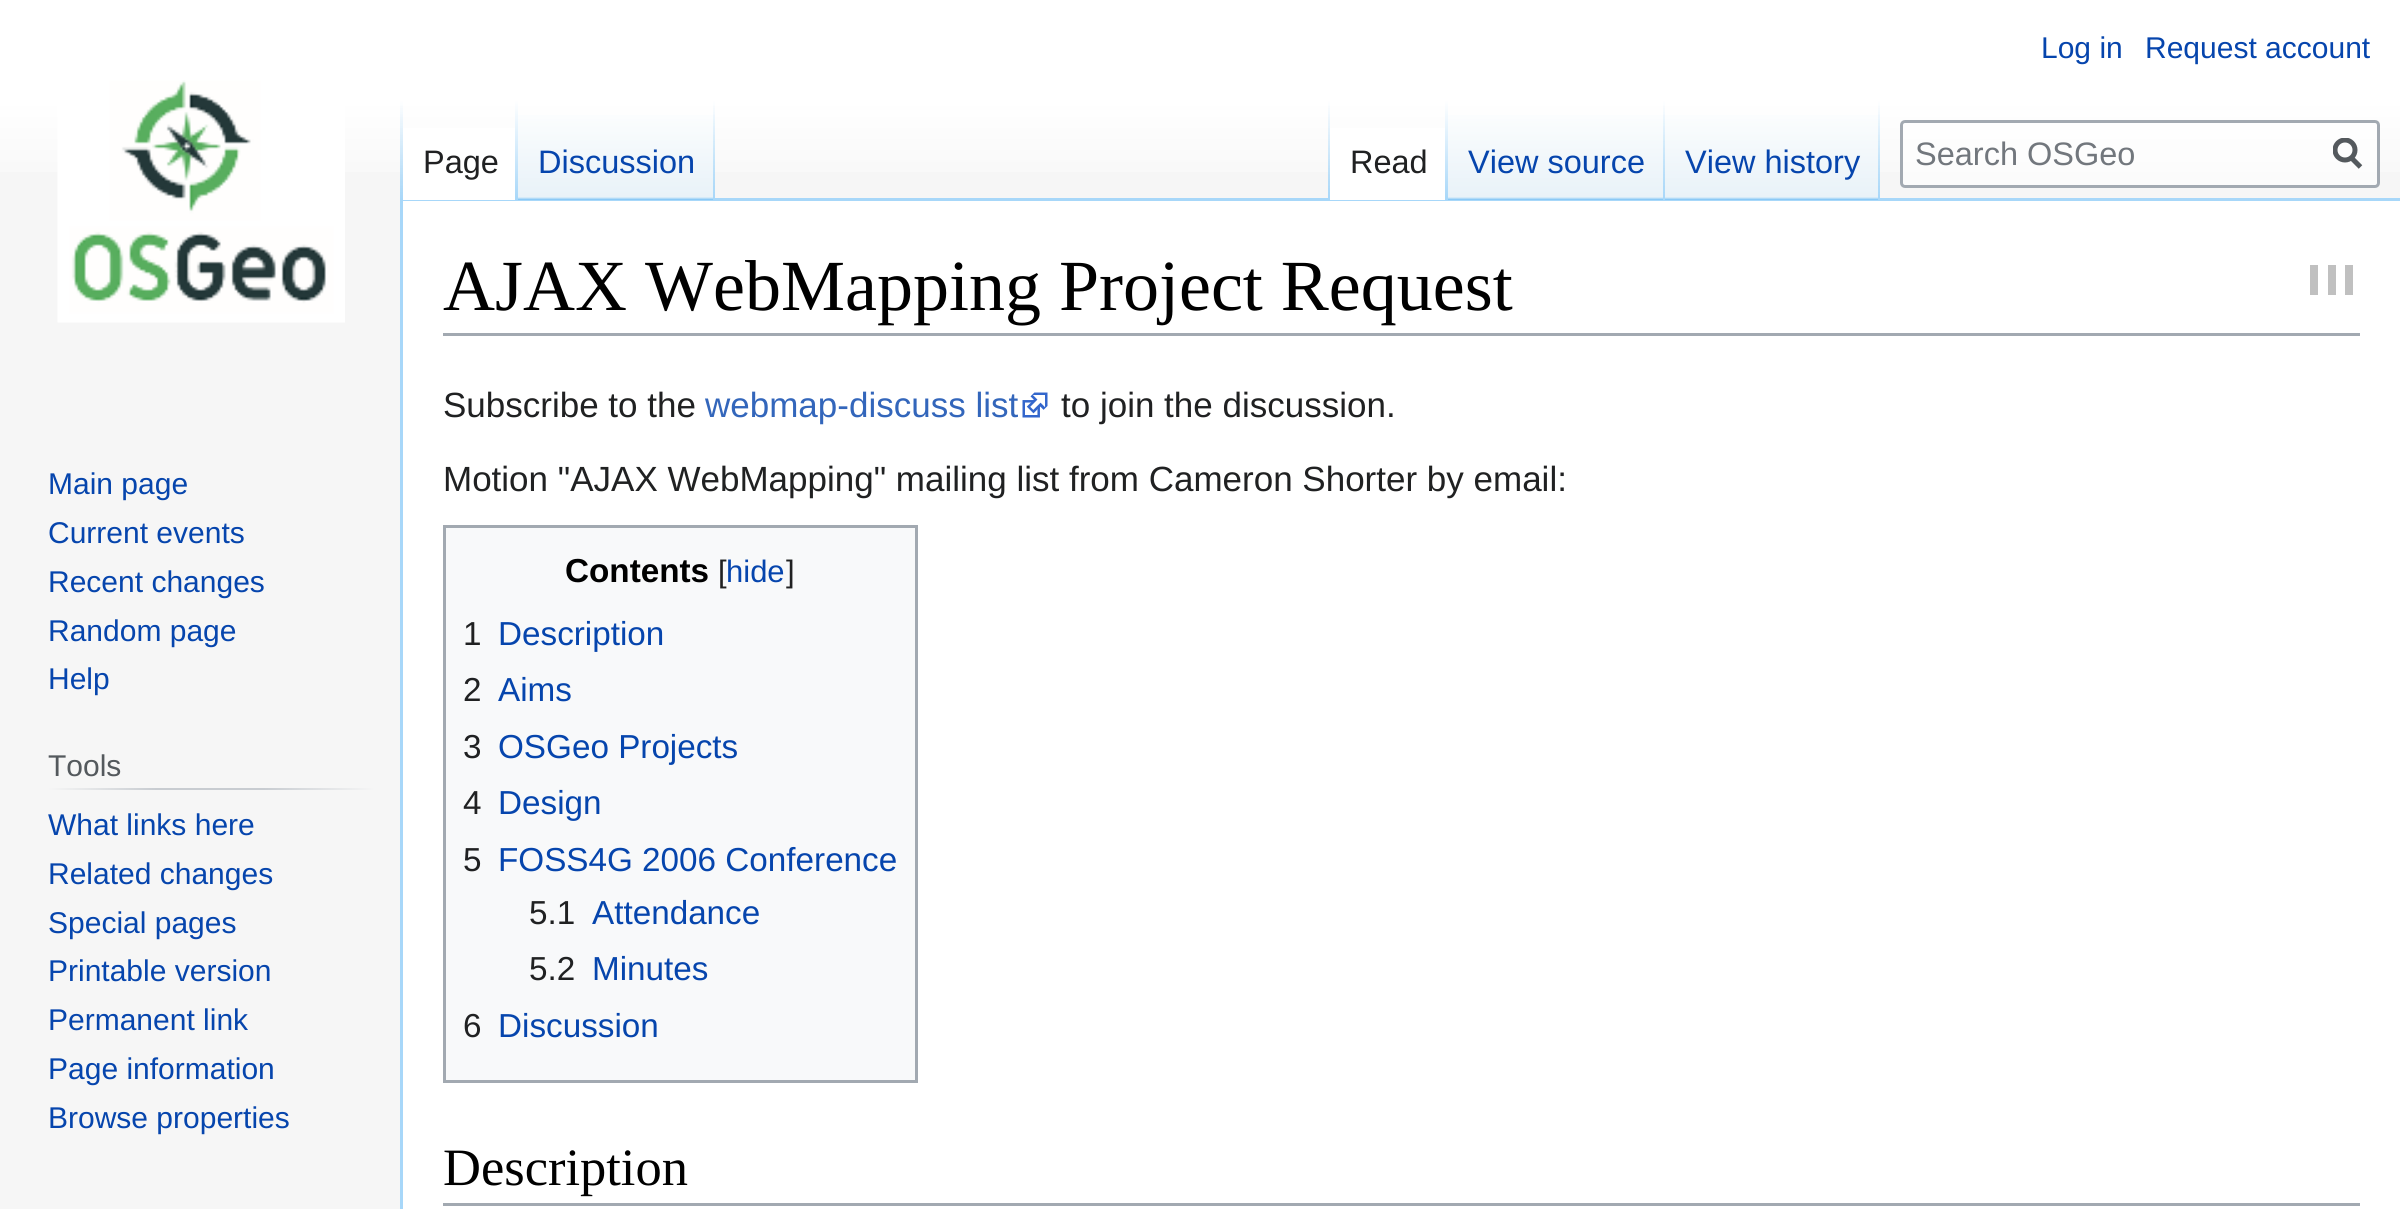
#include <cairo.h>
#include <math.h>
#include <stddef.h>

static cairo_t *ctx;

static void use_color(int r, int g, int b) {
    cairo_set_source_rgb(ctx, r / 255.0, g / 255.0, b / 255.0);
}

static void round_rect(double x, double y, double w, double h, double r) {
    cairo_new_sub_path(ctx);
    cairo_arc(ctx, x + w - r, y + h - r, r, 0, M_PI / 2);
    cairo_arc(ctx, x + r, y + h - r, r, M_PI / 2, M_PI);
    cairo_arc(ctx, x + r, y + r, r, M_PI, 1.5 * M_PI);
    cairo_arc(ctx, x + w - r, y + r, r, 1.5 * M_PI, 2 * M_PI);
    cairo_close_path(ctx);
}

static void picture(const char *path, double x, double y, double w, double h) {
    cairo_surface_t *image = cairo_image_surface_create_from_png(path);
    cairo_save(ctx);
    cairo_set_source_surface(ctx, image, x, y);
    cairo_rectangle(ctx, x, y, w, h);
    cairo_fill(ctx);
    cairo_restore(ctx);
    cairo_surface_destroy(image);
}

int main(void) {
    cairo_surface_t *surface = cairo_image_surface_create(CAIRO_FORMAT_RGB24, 2400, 1209);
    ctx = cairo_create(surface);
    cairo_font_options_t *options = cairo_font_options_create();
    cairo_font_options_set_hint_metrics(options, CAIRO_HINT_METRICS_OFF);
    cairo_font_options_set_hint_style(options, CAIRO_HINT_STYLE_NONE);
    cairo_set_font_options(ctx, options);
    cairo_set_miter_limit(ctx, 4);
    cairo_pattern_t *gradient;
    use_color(246, 246, 246);
    cairo_paint(ctx);
    gradient = cairo_pattern_create_linear(1200, 0, 1200, 200);
    cairo_pattern_add_color_stop_rgba(gradient, 0.5, 1, 1, 1, 1);
    cairo_pattern_add_color_stop_rgba(gradient, 1, 0.965, 0.965, 0.965, 1);
    cairo_set_source(ctx, gradient);
    cairo_pattern_destroy(gradient);
    cairo_rectangle(ctx, 0, 0, 2400, 172);
    cairo_fill(ctx);
    cairo_select_font_face(ctx, "Liberation Sans", CAIRO_FONT_SLANT_NORMAL, CAIRO_FONT_WEIGHT_NORMAL);
    cairo_set_font_size(ctx, 30);
    use_color(6, 69, 173);
    cairo_move_to(ctx, 2041, 58);
    cairo_show_text(ctx, "Log in");
    cairo_move_to(ctx, 2145, 58);
    cairo_show_text(ctx, "Request account");
    use_color(167, 215, 249);
    cairo_rectangle(ctx, 400, 198, 2000, 3);
    cairo_fill(ctx);
    cairo_rectangle(ctx, 400, 198, 3, 1011);
    cairo_fill(ctx);
    gradient = cairo_pattern_create_linear(401, 100, 401, 200);
    cairo_pattern_add_color_stop_rgba(gradient, 0, 0.655, 0.843, 0.976, 0);
    cairo_pattern_add_color_stop_rgba(gradient, 1, 0.655, 0.843, 0.976, 1);
    cairo_set_source(ctx, gradient);
    cairo_pattern_destroy(gradient);
    cairo_rectangle(ctx, 400, 100, 3, 100);
    cairo_fill(ctx);
    use_color(255, 255, 255);
    cairo_rectangle(ctx, 403, 128, 112, 72);
    cairo_fill(ctx);
    gradient = cairo_pattern_create_linear(516, 100, 516, 200);
    cairo_pattern_add_color_stop_rgba(gradient, 0, 1, 1, 1, 1);
    cairo_pattern_add_color_stop_rgba(gradient, 1, 0.655, 0.843, 0.976, 1);
    cairo_set_source(ctx, gradient);
    cairo_pattern_destroy(gradient);
    cairo_rectangle(ctx, 515, 100, 3, 100);
    cairo_fill(ctx);
    cairo_set_font_size(ctx, 32.5);
    use_color(32, 33, 34);
    cairo_move_to(ctx, 423, 173);
    cairo_show_text(ctx, "Page");
    gradient = cairo_pattern_create_linear(616, 200, 616, 100);
    cairo_pattern_add_color_stop_rgba(gradient, 0, 0.467, 0.757, 0.965, 1);
    cairo_pattern_add_color_stop_rgba(gradient, 0.03, 0.91, 0.949, 0.973, 1);
    cairo_pattern_add_color_stop_rgba(gradient, 1, 1, 1, 1, 1);
    cairo_set_source(ctx, gradient);
    cairo_pattern_destroy(gradient);
    cairo_rectangle(ctx, 518, 115, 197, 85);
    cairo_fill(ctx);
    gradient = cairo_pattern_create_linear(714, 100, 714, 200);
    cairo_pattern_add_color_stop_rgba(gradient, 0, 0.655, 0.843, 0.976, 0);
    cairo_pattern_add_color_stop_rgba(gradient, 1, 0.655, 0.843, 0.976, 1);
    cairo_set_source(ctx, gradient);
    cairo_pattern_destroy(gradient);
    cairo_rectangle(ctx, 713, 100, 2, 100);
    cairo_fill(ctx);
    use_color(6, 69, 173);
    cairo_move_to(ctx, 538, 173);
    cairo_show_text(ctx, "Discussion");
    gradient = cairo_pattern_create_linear(1329, 100, 1329, 200);
    cairo_pattern_add_color_stop_rgba(gradient, 0, 0.655, 0.843, 0.976, 0);
    cairo_pattern_add_color_stop_rgba(gradient, 1, 0.655, 0.843, 0.976, 1);
    cairo_set_source(ctx, gradient);
    cairo_pattern_destroy(gradient);
    cairo_rectangle(ctx, 1328, 100, 2, 100);
    cairo_fill(ctx);
    use_color(255, 255, 255);
    cairo_rectangle(ctx, 1330, 128, 115, 72);
    cairo_fill(ctx);
    gradient = cairo_pattern_create_linear(1446, 100, 1446, 200);
    cairo_pattern_add_color_stop_rgba(gradient, 0, 1, 1, 1, 1);
    cairo_pattern_add_color_stop_rgba(gradient, 1, 0.655, 0.843, 0.976, 1);
    cairo_set_source(ctx, gradient);
    cairo_pattern_destroy(gradient);
    cairo_rectangle(ctx, 1445, 100, 3, 100);
    cairo_fill(ctx);
    use_color(32, 33, 34);
    cairo_move_to(ctx, 1350, 173);
    cairo_show_text(ctx, "Read");
    gradient = cairo_pattern_create_linear(1556, 200, 1556, 100);
    cairo_pattern_add_color_stop_rgba(gradient, 0, 0.467, 0.757, 0.965, 1);
    cairo_pattern_add_color_stop_rgba(gradient, 0.03, 0.91, 0.949, 0.973, 1);
    cairo_pattern_add_color_stop_rgba(gradient, 1, 1, 1, 1, 1);
    cairo_set_source(ctx, gradient);
    cairo_pattern_destroy(gradient);
    cairo_rectangle(ctx, 1448, 115, 217, 85);
    cairo_fill(ctx);
    gradient = cairo_pattern_create_linear(1664, 100, 1664, 200);
    cairo_pattern_add_color_stop_rgba(gradient, 0, 0.655, 0.843, 0.976, 0);
    cairo_pattern_add_color_stop_rgba(gradient, 1, 0.655, 0.843, 0.976, 1);
    cairo_set_source(ctx, gradient);
    cairo_pattern_destroy(gradient);
    cairo_rectangle(ctx, 1663, 100, 2, 100);
    cairo_fill(ctx);
    use_color(6, 69, 173);
    cairo_move_to(ctx, 1468, 173);
    cairo_show_text(ctx, "View source");
    gradient = cairo_pattern_create_linear(1773, 200, 1773, 100);
    cairo_pattern_add_color_stop_rgba(gradient, 0, 0.467, 0.757, 0.965, 1);
    cairo_pattern_add_color_stop_rgba(gradient, 0.03, 0.91, 0.949, 0.973, 1);
    cairo_pattern_add_color_stop_rgba(gradient, 1, 1, 1, 1, 1);
    cairo_set_source(ctx, gradient);
    cairo_pattern_destroy(gradient);
    cairo_rectangle(ctx, 1665, 115, 215, 85);
    cairo_fill(ctx);
    gradient = cairo_pattern_create_linear(1879, 100, 1879, 200);
    cairo_pattern_add_color_stop_rgba(gradient, 0, 0.655, 0.843, 0.976, 0);
    cairo_pattern_add_color_stop_rgba(gradient, 1, 0.655, 0.843, 0.976, 1);
    cairo_set_source(ctx, gradient);
    cairo_pattern_destroy(gradient);
    cairo_rectangle(ctx, 1878, 100, 2, 100);
    cairo_fill(ctx);
    use_color(6, 69, 173);
    cairo_move_to(ctx, 1685, 173);
    cairo_show_text(ctx, "View history");
    cairo_set_source_rgba(ctx, 1, 1, 1, 0.5);
    round_rect(1901.5, 121.5, 477, 65, 3.5);
    cairo_fill_preserve(ctx);
    use_color(162, 169, 177);
    cairo_set_line_width(ctx, 3);
    cairo_stroke(ctx);
    use_color(114, 119, 125);
    cairo_move_to(ctx, 1915, 165);
    cairo_show_text(ctx, "Search OSGeo");
    cairo_new_path(ctx);
    cairo_move_to(ctx, 2360.5, 167);
    cairo_line_to(ctx, 2350.5, 157);
    use_color(84, 89, 93);
    cairo_set_line_width(ctx, 5);
    cairo_stroke(ctx);
    cairo_save(ctx);
    cairo_rectangle(ctx, 2333, 138, 30, 32);
    cairo_clip(ctx);
    cairo_arc(ctx, 2345, 150, 10, 0, 2 * M_PI);
    cairo_stroke(ctx);
    cairo_restore(ctx);
    picture("img1.png", 57, 80, 288, 243);
    cairo_set_font_size(ctx, 30);
    use_color(6, 69, 173);
    cairo_move_to(ctx, 48, 494);
    cairo_show_text(ctx, "Main page");
    cairo_move_to(ctx, 48, 543);
    cairo_show_text(ctx, "Current events");
    cairo_move_to(ctx, 48, 592);
    cairo_show_text(ctx, "Recent changes");
    cairo_move_to(ctx, 48, 641);
    cairo_show_text(ctx, "Random page");
    cairo_move_to(ctx, 48, 689);
    cairo_show_text(ctx, "Help");
    gradient = cairo_pattern_create_linear(48, 789, 375, 789);
    cairo_pattern_add_color_stop_rgba(gradient, 0, 0.965, 0.965, 0.965, 1);
    cairo_pattern_add_color_stop_rgba(gradient, 0.33, 0.784, 0.8, 0.82, 1);
    cairo_pattern_add_color_stop_rgba(gradient, 0.66, 0.784, 0.8, 0.82, 1);
    cairo_pattern_add_color_stop_rgba(gradient, 1, 0.965, 0.965, 0.965, 1);
    cairo_set_source(ctx, gradient);
    cairo_pattern_destroy(gradient);
    cairo_rectangle(ctx, 48, 788, 327, 2);
    cairo_fill(ctx);
    use_color(84, 89, 93);
    cairo_move_to(ctx, 48, 776);
    cairo_show_text(ctx, "Tools");
    use_color(6, 69, 173);
    cairo_move_to(ctx, 48, 835);
    cairo_show_text(ctx, "What links here");
    cairo_move_to(ctx, 48, 884);
    cairo_show_text(ctx, "Related changes");
    cairo_move_to(ctx, 48, 933);
    cairo_show_text(ctx, "Special pages");
    cairo_move_to(ctx, 48, 981);
    cairo_show_text(ctx, "Printable version");
    cairo_move_to(ctx, 48, 1030);
    cairo_show_text(ctx, "Permanent link");
    cairo_move_to(ctx, 48, 1079);
    cairo_show_text(ctx, "Page information");
    cairo_move_to(ctx, 48, 1128);
    cairo_show_text(ctx, "Browse properties");
    use_color(255, 255, 255);
    cairo_rectangle(ctx, 403, 201, 1997, 1008);
    cairo_fill(ctx);
    use_color(162, 169, 177);
    cairo_rectangle(ctx, 443, 333, 1917, 3);
    cairo_fill(ctx);
    cairo_select_font_face(ctx, "Liberation Serif", CAIRO_FONT_SLANT_NORMAL, CAIRO_FONT_WEIGHT_NORMAL);
    cairo_set_font_size(ctx, 72);
    use_color(0, 0, 0);
    cairo_move_to(ctx, 443, 310);
    cairo_show_text(ctx, "AJAX WebMapping Project Request");
    use_color(192, 192, 192);
    cairo_rectangle(ctx, 2328, 265, 8, 30);
    cairo_fill(ctx);
    cairo_rectangle(ctx, 2310, 265, 8, 30);
    cairo_fill(ctx);
    cairo_rectangle(ctx, 2345, 265, 8, 30);
    cairo_fill(ctx);
    cairo_select_font_face(ctx, "Liberation Sans", CAIRO_FONT_SLANT_NORMAL, CAIRO_FONT_WEIGHT_NORMAL);
    cairo_set_font_size(ctx, 35);
    use_color(32, 33, 34);
    cairo_move_to(ctx, 443, 417);
    cairo_show_text(ctx, "Subscribe to the");
    use_color(51, 102, 187);
    cairo_move_to(ctx, 705, 417);
    cairo_show_text(ctx, "webmap-discuss list");
    picture("img2.png", 1022, 392, 26, 26);
    use_color(32, 33, 34);
    cairo_move_to(ctx, 1061, 417);
    cairo_show_text(ctx, "to join the discussion.");
    cairo_move_to(ctx, 443, 491);
    cairo_show_text(ctx, "Motion \"AJAX WebMapping\" mailing list from Cameron Shorter by email:");
    use_color(248, 249, 250);
    cairo_rectangle(ctx, 444.5, 526.5, 472, 555);
    cairo_fill_preserve(ctx);
    use_color(162, 169, 177);
    cairo_set_line_width(ctx, 3);
    cairo_stroke(ctx);
    cairo_select_font_face(ctx, "Liberation Sans", CAIRO_FONT_SLANT_NORMAL, CAIRO_FONT_WEIGHT_BOLD);
    cairo_set_font_size(ctx, 33.25);
    use_color(0, 0, 0);
    cairo_move_to(ctx, 565, 582);
    cairo_show_text(ctx, "Contents");
    cairo_select_font_face(ctx, "Liberation Sans", CAIRO_FONT_SLANT_NORMAL, CAIRO_FONT_WEIGHT_NORMAL);
    cairo_set_font_size(ctx, 31);
    use_color(32, 33, 34);
    cairo_move_to(ctx, 718, 582);
    cairo_show_text(ctx, "[");
    use_color(6, 69, 173);
    cairo_move_to(ctx, 726, 582);
    cairo_show_text(ctx, "hide");
    use_color(32, 33, 34);
    cairo_move_to(ctx, 786, 582);
    cairo_show_text(ctx, "]");
    cairo_set_font_size(ctx, 33.25);
    cairo_move_to(ctx, 463, 645);
    cairo_show_text(ctx, "1");
    use_color(6, 69, 173);
    cairo_move_to(ctx, 498, 645);
    cairo_show_text(ctx, "Description");
    use_color(32, 33, 34);
    cairo_move_to(ctx, 463, 701);
    cairo_show_text(ctx, "2");
    use_color(6, 69, 173);
    cairo_move_to(ctx, 498, 701);
    cairo_show_text(ctx, "Aims");
    use_color(32, 33, 34);
    cairo_move_to(ctx, 463, 758);
    cairo_show_text(ctx, "3");
    use_color(6, 69, 173);
    cairo_move_to(ctx, 498, 758);
    cairo_show_text(ctx, "OSGeo Projects");
    use_color(32, 33, 34);
    cairo_move_to(ctx, 463, 814);
    cairo_show_text(ctx, "4");
    use_color(6, 69, 173);
    cairo_move_to(ctx, 498, 814);
    cairo_show_text(ctx, "Design");
    use_color(32, 33, 34);
    cairo_move_to(ctx, 463, 871);
    cairo_show_text(ctx, "5");
    use_color(6, 69, 173);
    cairo_move_to(ctx, 498, 871);
    cairo_show_text(ctx, "FOSS4G 2006 Conference");
    use_color(32, 33, 34);
    cairo_move_to(ctx, 529, 924);
    cairo_show_text(ctx, "5.1");
    use_color(6, 69, 173);
    cairo_move_to(ctx, 592, 924);
    cairo_show_text(ctx, "Attendance");
    use_color(32, 33, 34);
    cairo_move_to(ctx, 529, 980);
    cairo_show_text(ctx, "5.2");
    use_color(6, 69, 173);
    cairo_move_to(ctx, 592, 980);
    cairo_show_text(ctx, "Minutes");
    use_color(32, 33, 34);
    cairo_move_to(ctx, 463, 1037);
    cairo_show_text(ctx, "6");
    use_color(6, 69, 173);
    cairo_move_to(ctx, 498, 1037);
    cairo_show_text(ctx, "Discussion");
    use_color(162, 169, 177);
    cairo_rectangle(ctx, 443, 1203, 1917, 3);
    cairo_fill(ctx);
    cairo_select_font_face(ctx, "Liberation Serif", CAIRO_FONT_SLANT_NORMAL, CAIRO_FONT_WEIGHT_NORMAL);
    cairo_set_font_size(ctx, 52.5);
    use_color(0, 0, 0);
    cairo_move_to(ctx, 443, 1185);
    cairo_show_text(ctx, "Description");
    cairo_surface_write_to_png(surface, "result.png");
    cairo_font_options_destroy(options);
    cairo_destroy(ctx);
    cairo_surface_destroy(surface);
    return 0;
}
